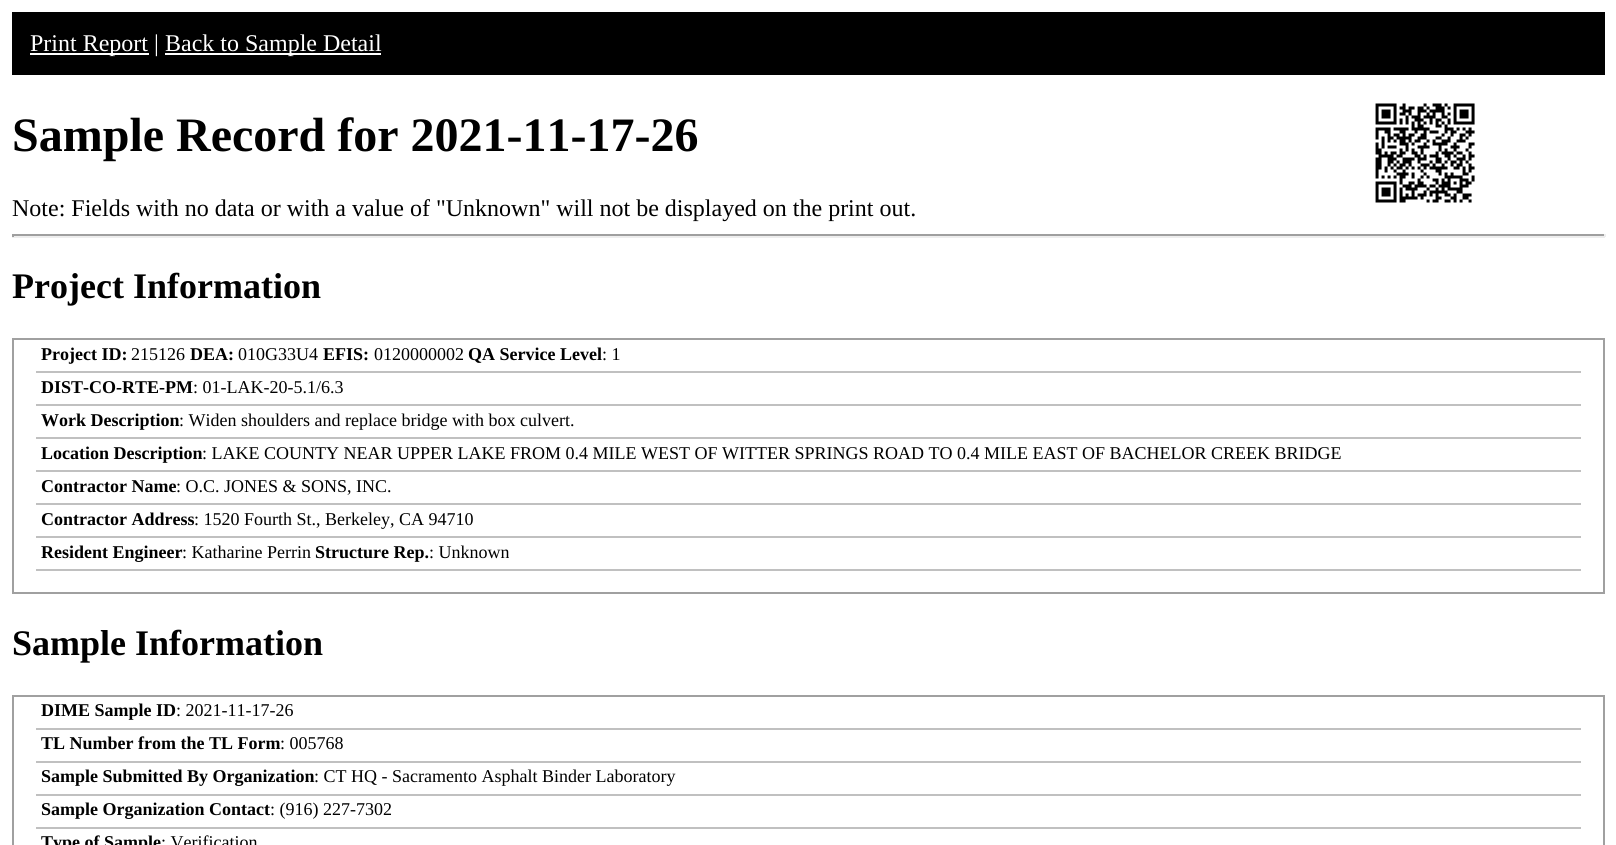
#include <cairo.h>
#include <math.h>
#include <stddef.h>

static cairo_t *ctx;

static void use_color(int r, int g, int b) {
    cairo_set_source_rgb(ctx, r / 255.0, g / 255.0, b / 255.0);
}

static void picture(const char *path, double x, double y, double w, double h) {
    cairo_surface_t *image = cairo_image_surface_create_from_png(path);
    cairo_save(ctx);
    cairo_set_source_surface(ctx, image, x, y);
    cairo_rectangle(ctx, x, y, w, h);
    cairo_fill(ctx);
    cairo_restore(ctx);
    cairo_surface_destroy(image);
}

int main(void) {
    cairo_surface_t *surface = cairo_image_surface_create(CAIRO_FORMAT_RGB24, 1616, 845);
    ctx = cairo_create(surface);
    cairo_font_options_t *options = cairo_font_options_create();
    cairo_font_options_set_hint_metrics(options, CAIRO_HINT_METRICS_OFF);
    cairo_font_options_set_hint_style(options, CAIRO_HINT_STYLE_NONE);
    cairo_set_font_options(ctx, options);
    cairo_set_miter_limit(ctx, 4);
    use_color(255, 255, 255);
    cairo_paint(ctx);
    use_color(0, 0, 0);
    cairo_rectangle(ctx, 12, 12, 1593, 63);
    cairo_fill(ctx);
    use_color(255, 255, 255);
    cairo_rectangle(ctx, 30, 53, 119, 2);
    cairo_fill(ctx);
    cairo_select_font_face(ctx, "Liberation Serif", CAIRO_FONT_SLANT_NORMAL, CAIRO_FONT_WEIGHT_NORMAL);
    cairo_set_font_size(ctx, 24);
    cairo_move_to(ctx, 30, 51);
    cairo_show_text(ctx, "Print Report |");
    cairo_rectangle(ctx, 165, 53, 216, 2);
    cairo_fill(ctx);
    cairo_move_to(ctx, 165, 51);
    cairo_show_text(ctx, "Back to Sample Detail");
    cairo_select_font_face(ctx, "Liberation Serif", CAIRO_FONT_SLANT_NORMAL, CAIRO_FONT_WEIGHT_BOLD);
    cairo_set_font_size(ctx, 48);
    use_color(0, 0, 0);
    cairo_move_to(ctx, 12, 151);
    cairo_show_text(ctx, "Sample Record for 2021-11-17-26");
    picture("img1.png", 1375, 103, 100, 100);
    cairo_select_font_face(ctx, "Liberation Serif", CAIRO_FONT_SLANT_NORMAL, CAIRO_FONT_WEIGHT_NORMAL);
    cairo_set_font_size(ctx, 24);
    cairo_move_to(ctx, 12, 216);
    cairo_show_text(ctx, "Note: Fields with no data or with a value of \"Unknown\" will not be displayed on the print out.");
    use_color(159, 159, 159);
    cairo_rectangle(ctx, 12, 234, 1593, 2);
    cairo_fill(ctx);
    use_color(238, 238, 238);
    cairo_rectangle(ctx, 1604, 234, 2, 3);
    cairo_fill(ctx);
    cairo_rectangle(ctx, 12, 236, 1593, 2);
    cairo_fill(ctx);
    use_color(159, 159, 159);
    cairo_rectangle(ctx, 12, 234, 2, 3);
    cairo_fill(ctx);
    cairo_select_font_face(ctx, "Liberation Serif", CAIRO_FONT_SLANT_NORMAL, CAIRO_FONT_WEIGHT_BOLD);
    cairo_set_font_size(ctx, 36);
    use_color(0, 0, 0);
    cairo_move_to(ctx, 12, 298);
    cairo_show_text(ctx, "Project Information");
    cairo_rectangle(ctx, 13, 339, 1591, 254);
    use_color(160, 160, 160);
    cairo_stroke(ctx);
    use_color(192, 192, 192);
    cairo_rectangle(ctx, 36, 371, 1545, 2);
    cairo_fill(ctx);
    cairo_set_font_size(ctx, 18);
    use_color(0, 0, 0);
    cairo_move_to(ctx, 41, 360);
    cairo_show_text(ctx, "Project ID:");
    cairo_select_font_face(ctx, "Liberation Serif", CAIRO_FONT_SLANT_NORMAL, CAIRO_FONT_WEIGHT_NORMAL);
    cairo_move_to(ctx, 131, 360);
    cairo_show_text(ctx, "215126");
    cairo_select_font_face(ctx, "Liberation Serif", CAIRO_FONT_SLANT_NORMAL, CAIRO_FONT_WEIGHT_BOLD);
    cairo_move_to(ctx, 190, 360);
    cairo_show_text(ctx, "DEA:");
    cairo_select_font_face(ctx, "Liberation Serif", CAIRO_FONT_SLANT_NORMAL, CAIRO_FONT_WEIGHT_NORMAL);
    cairo_move_to(ctx, 238, 360);
    cairo_show_text(ctx, "010G33U4");
    cairo_select_font_face(ctx, "Liberation Serif", CAIRO_FONT_SLANT_NORMAL, CAIRO_FONT_WEIGHT_BOLD);
    cairo_move_to(ctx, 323, 360);
    cairo_show_text(ctx, "EFIS:");
    cairo_select_font_face(ctx, "Liberation Serif", CAIRO_FONT_SLANT_NORMAL, CAIRO_FONT_WEIGHT_NORMAL);
    cairo_move_to(ctx, 374, 360);
    cairo_show_text(ctx, "0120000002");
    cairo_select_font_face(ctx, "Liberation Serif", CAIRO_FONT_SLANT_NORMAL, CAIRO_FONT_WEIGHT_BOLD);
    cairo_move_to(ctx, 468, 360);
    cairo_show_text(ctx, "QA Service Level");
    cairo_select_font_face(ctx, "Liberation Serif", CAIRO_FONT_SLANT_NORMAL, CAIRO_FONT_WEIGHT_NORMAL);
    cairo_move_to(ctx, 602, 360);
    cairo_show_text(ctx, ": 1");
    use_color(192, 192, 192);
    cairo_rectangle(ctx, 36, 404, 1545, 2);
    cairo_fill(ctx);
    cairo_select_font_face(ctx, "Liberation Serif", CAIRO_FONT_SLANT_NORMAL, CAIRO_FONT_WEIGHT_BOLD);
    use_color(0, 0, 0);
    cairo_move_to(ctx, 41, 393);
    cairo_show_text(ctx, "DIST-CO-RTE-PM");
    cairo_select_font_face(ctx, "Liberation Serif", CAIRO_FONT_SLANT_NORMAL, CAIRO_FONT_WEIGHT_NORMAL);
    cairo_move_to(ctx, 193, 393);
    cairo_show_text(ctx, ": 01-LAK-20-5.1/6.3");
    use_color(192, 192, 192);
    cairo_rectangle(ctx, 36, 437, 1545, 2);
    cairo_fill(ctx);
    cairo_select_font_face(ctx, "Liberation Serif", CAIRO_FONT_SLANT_NORMAL, CAIRO_FONT_WEIGHT_BOLD);
    use_color(0, 0, 0);
    cairo_move_to(ctx, 41, 426);
    cairo_show_text(ctx, "Work Description");
    cairo_select_font_face(ctx, "Liberation Serif", CAIRO_FONT_SLANT_NORMAL, CAIRO_FONT_WEIGHT_NORMAL);
    cairo_move_to(ctx, 179, 426);
    cairo_show_text(ctx, ": Widen shoulders and replace bridge with box culvert.");
    use_color(192, 192, 192);
    cairo_rectangle(ctx, 36, 470, 1545, 2);
    cairo_fill(ctx);
    cairo_select_font_face(ctx, "Liberation Serif", CAIRO_FONT_SLANT_NORMAL, CAIRO_FONT_WEIGHT_BOLD);
    use_color(0, 0, 0);
    cairo_move_to(ctx, 41, 459);
    cairo_show_text(ctx, "Location Description");
    cairo_select_font_face(ctx, "Liberation Serif", CAIRO_FONT_SLANT_NORMAL, CAIRO_FONT_WEIGHT_NORMAL);
    cairo_move_to(ctx, 202, 459);
    cairo_show_text(ctx, ": LAKE COUNTY NEAR UPPER LAKE FROM 0.4 MILE WEST OF WITTER SPRINGS ROAD TO 0.4 MILE EAST OF BACHELOR CREEK BRIDGE");
    use_color(192, 192, 192);
    cairo_rectangle(ctx, 36, 503, 1545, 2);
    cairo_fill(ctx);
    cairo_select_font_face(ctx, "Liberation Serif", CAIRO_FONT_SLANT_NORMAL, CAIRO_FONT_WEIGHT_BOLD);
    use_color(0, 0, 0);
    cairo_move_to(ctx, 41, 492);
    cairo_show_text(ctx, "Contractor Name");
    cairo_select_font_face(ctx, "Liberation Serif", CAIRO_FONT_SLANT_NORMAL, CAIRO_FONT_WEIGHT_NORMAL);
    cairo_move_to(ctx, 176, 492);
    cairo_show_text(ctx, ": O.C. JONES & SONS, INC.");
    use_color(192, 192, 192);
    cairo_rectangle(ctx, 36, 536, 1545, 2);
    cairo_fill(ctx);
    cairo_select_font_face(ctx, "Liberation Serif", CAIRO_FONT_SLANT_NORMAL, CAIRO_FONT_WEIGHT_BOLD);
    use_color(0, 0, 0);
    cairo_move_to(ctx, 41, 525);
    cairo_show_text(ctx, "Contractor Address");
    cairo_select_font_face(ctx, "Liberation Serif", CAIRO_FONT_SLANT_NORMAL, CAIRO_FONT_WEIGHT_NORMAL);
    cairo_move_to(ctx, 194, 525);
    cairo_show_text(ctx, ": 1520 Fourth St., Berkeley, CA 94710");
    use_color(192, 192, 192);
    cairo_rectangle(ctx, 36, 569, 1545, 2);
    cairo_fill(ctx);
    cairo_select_font_face(ctx, "Liberation Serif", CAIRO_FONT_SLANT_NORMAL, CAIRO_FONT_WEIGHT_BOLD);
    use_color(0, 0, 0);
    cairo_move_to(ctx, 41, 558);
    cairo_show_text(ctx, "Resident Engineer");
    cairo_select_font_face(ctx, "Liberation Serif", CAIRO_FONT_SLANT_NORMAL, CAIRO_FONT_WEIGHT_NORMAL);
    cairo_move_to(ctx, 182, 558);
    cairo_show_text(ctx, ": Katharine Perrin");
    cairo_select_font_face(ctx, "Liberation Serif", CAIRO_FONT_SLANT_NORMAL, CAIRO_FONT_WEIGHT_BOLD);
    cairo_move_to(ctx, 315, 558);
    cairo_show_text(ctx, "Structure Rep.");
    cairo_select_font_face(ctx, "Liberation Serif", CAIRO_FONT_SLANT_NORMAL, CAIRO_FONT_WEIGHT_NORMAL);
    cairo_move_to(ctx, 429, 558);
    cairo_show_text(ctx, ": Unknown");
    cairo_select_font_face(ctx, "Liberation Serif", CAIRO_FONT_SLANT_NORMAL, CAIRO_FONT_WEIGHT_BOLD);
    cairo_set_font_size(ctx, 36);
    cairo_move_to(ctx, 12, 655);
    cairo_show_text(ctx, "Sample Information");
    cairo_rectangle(ctx, 13, 696, 1591, 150);
    use_color(160, 160, 160);
    cairo_stroke(ctx);
    use_color(192, 192, 192);
    cairo_rectangle(ctx, 36, 728, 1545, 2);
    cairo_fill(ctx);
    cairo_set_font_size(ctx, 18);
    use_color(0, 0, 0);
    cairo_move_to(ctx, 41, 716);
    cairo_show_text(ctx, "DIME Sample ID");
    cairo_select_font_face(ctx, "Liberation Serif", CAIRO_FONT_SLANT_NORMAL, CAIRO_FONT_WEIGHT_NORMAL);
    cairo_move_to(ctx, 176, 716);
    cairo_show_text(ctx, ": 2021-11-17-26");
    use_color(192, 192, 192);
    cairo_rectangle(ctx, 36, 761, 1545, 2);
    cairo_fill(ctx);
    cairo_select_font_face(ctx, "Liberation Serif", CAIRO_FONT_SLANT_NORMAL, CAIRO_FONT_WEIGHT_BOLD);
    use_color(0, 0, 0);
    cairo_move_to(ctx, 41, 749);
    cairo_show_text(ctx, "TL Number from the TL Form");
    cairo_select_font_face(ctx, "Liberation Serif", CAIRO_FONT_SLANT_NORMAL, CAIRO_FONT_WEIGHT_NORMAL);
    cairo_move_to(ctx, 280, 749);
    cairo_show_text(ctx, ": 005768");
    use_color(192, 192, 192);
    cairo_rectangle(ctx, 36, 794, 1545, 2);
    cairo_fill(ctx);
    cairo_select_font_face(ctx, "Liberation Serif", CAIRO_FONT_SLANT_NORMAL, CAIRO_FONT_WEIGHT_BOLD);
    use_color(0, 0, 0);
    cairo_move_to(ctx, 41, 782);
    cairo_show_text(ctx, "Sample Submitted By Organization");
    cairo_select_font_face(ctx, "Liberation Serif", CAIRO_FONT_SLANT_NORMAL, CAIRO_FONT_WEIGHT_NORMAL);
    cairo_move_to(ctx, 314, 782);
    cairo_show_text(ctx, ": CT HQ - Sacramento Asphalt Binder Laboratory");
    use_color(192, 192, 192);
    cairo_rectangle(ctx, 36, 827, 1545, 2);
    cairo_fill(ctx);
    cairo_select_font_face(ctx, "Liberation Serif", CAIRO_FONT_SLANT_NORMAL, CAIRO_FONT_WEIGHT_BOLD);
    use_color(0, 0, 0);
    cairo_move_to(ctx, 41, 815);
    cairo_show_text(ctx, "Sample Organization Contact");
    cairo_select_font_face(ctx, "Liberation Serif", CAIRO_FONT_SLANT_NORMAL, CAIRO_FONT_WEIGHT_NORMAL);
    cairo_move_to(ctx, 270, 815);
    cairo_show_text(ctx, ": (916) 227-7302");
    cairo_select_font_face(ctx, "Liberation Serif", CAIRO_FONT_SLANT_NORMAL, CAIRO_FONT_WEIGHT_BOLD);
    cairo_move_to(ctx, 41, 848);
    cairo_show_text(ctx, "Type of Sample");
    cairo_select_font_face(ctx, "Liberation Serif", CAIRO_FONT_SLANT_NORMAL, CAIRO_FONT_WEIGHT_NORMAL);
    cairo_move_to(ctx, 161, 848);
    cairo_show_text(ctx, ": Verification");
    cairo_surface_write_to_png(surface, "result.png");
    cairo_font_options_destroy(options);
    cairo_destroy(ctx);
    cairo_surface_destroy(surface);
    return 0;
}
